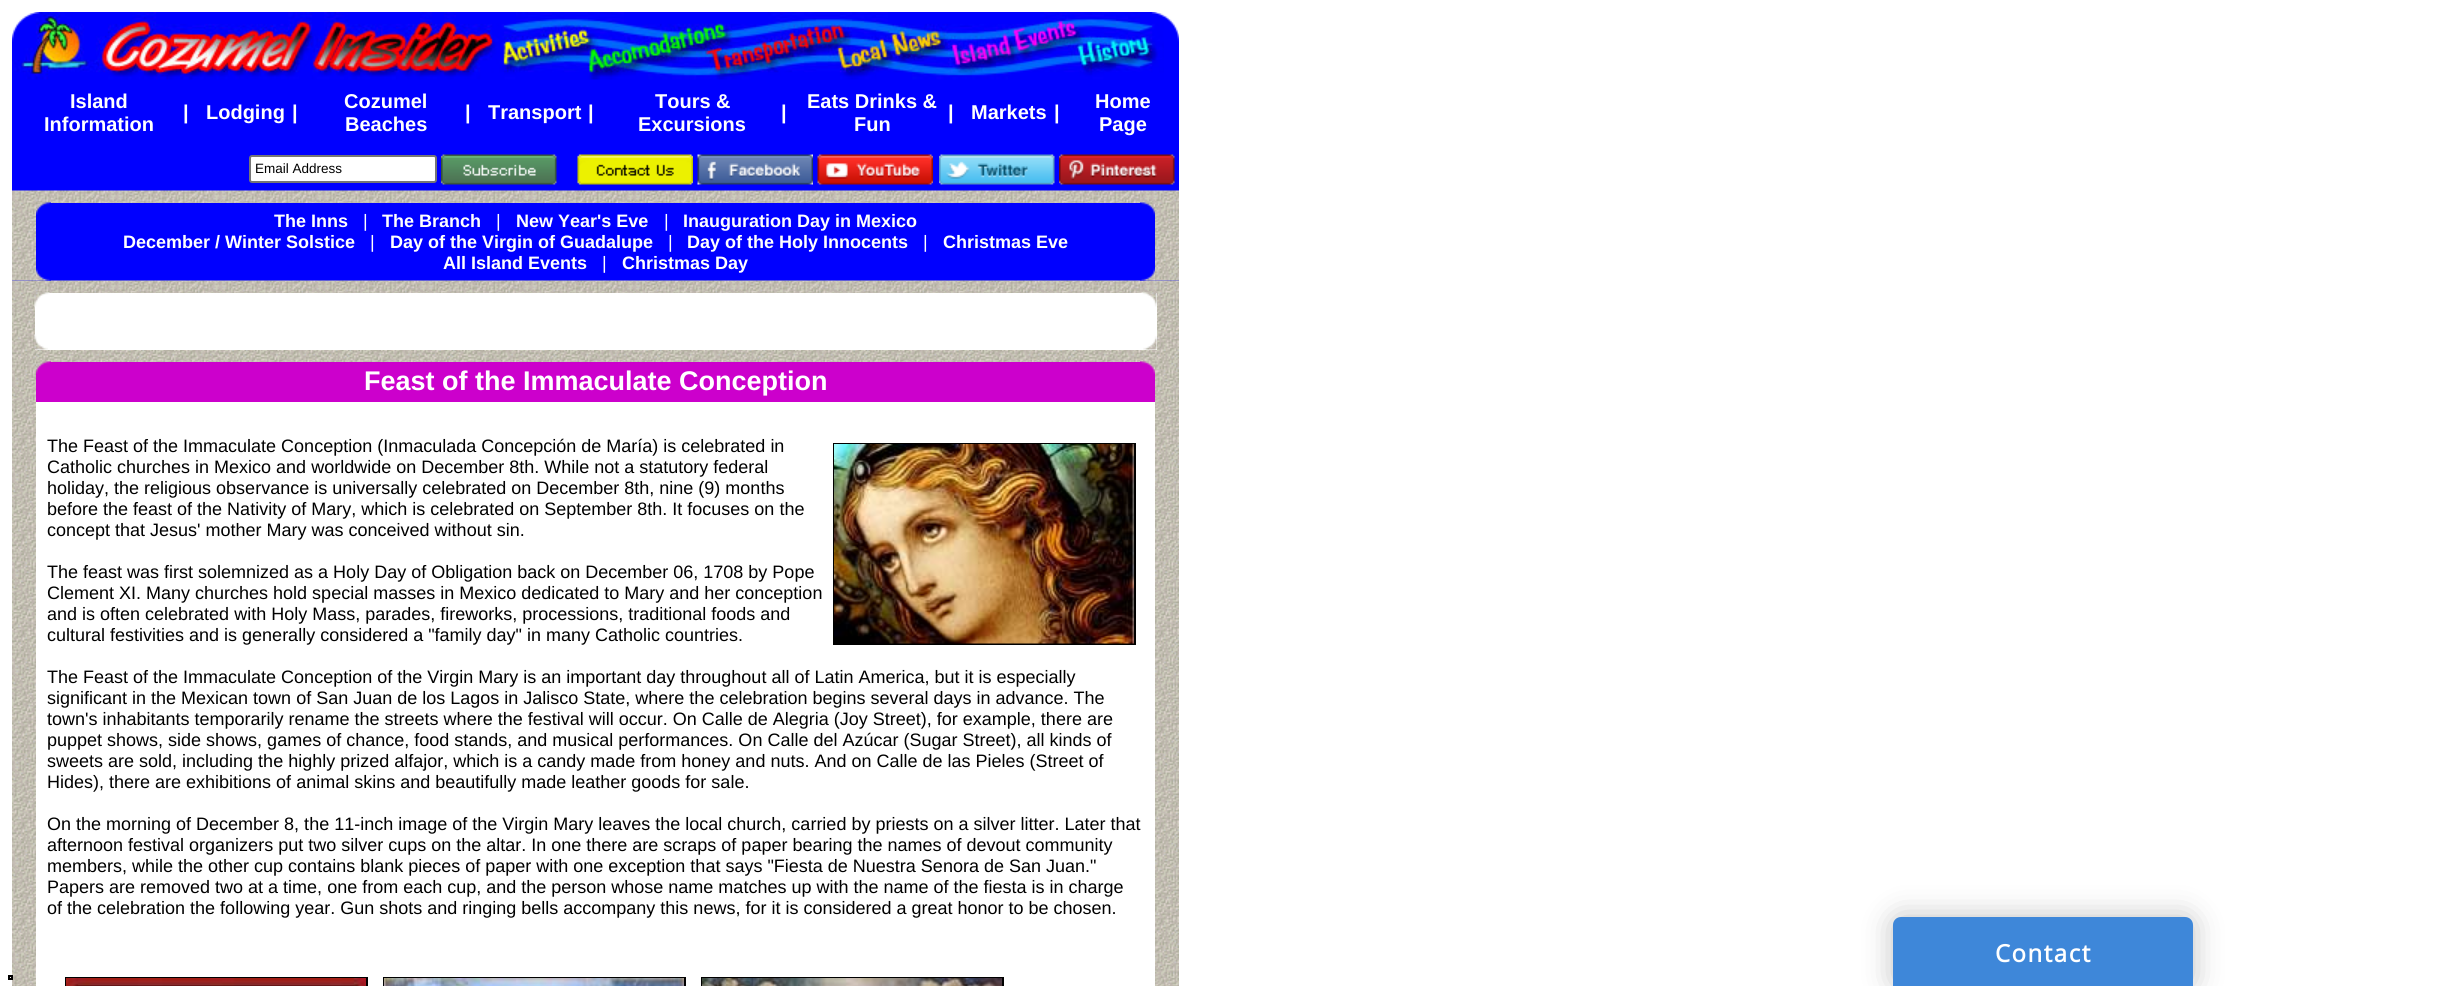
#include <cairo.h>
#include <math.h>
#include <stddef.h>

static cairo_t *ctx;

static void use_color(int r, int g, int b) {
    cairo_set_source_rgb(ctx, r / 255.0, g / 255.0, b / 255.0);
}

static void spaced_text(double x, double y, const char *s, double letter, double word) {
    cairo_move_to(ctx, x, y);
    while (*s) {
        char ch[5] = {0};
        int n = 0;
        do ch[n++] = *s++; while ((*s & 0xC0) == 0x80);
        cairo_show_text(ctx, ch);
        cairo_rel_move_to(ctx, letter + word * (*ch == ' '), 0);
    }
}

static void round_rect(double x, double y, double w, double h, double r) {
    cairo_new_sub_path(ctx);
    cairo_arc(ctx, x + w - r, y + h - r, r, 0, M_PI / 2);
    cairo_arc(ctx, x + r, y + h - r, r, M_PI / 2, M_PI);
    cairo_arc(ctx, x + r, y + r, r, M_PI, 1.5 * M_PI);
    cairo_arc(ctx, x + w - r, y + r, r, 1.5 * M_PI, 2 * M_PI);
    cairo_close_path(ctx);
}

static void shadow(double x, double y, double w, double h, double r, double blur, double alpha) {
    cairo_push_group_with_content(ctx, CAIRO_CONTENT_ALPHA);
    cairo_set_operator(ctx, CAIRO_OPERATOR_SOURCE);
    for (int i = 15; i >= -15 && fmin(w, h) + blur * i / 3 > 0; i -= 2) {
        double e = blur * i / 6;
        cairo_set_source_rgba(ctx, 0, 0, 0, alpha * erfc((i - 1) / 8.5) / 2);
        round_rect(x - e, y - e, w + 2 * e, h + 2 * e, fmax(0, fmin(r + e + blur * .6, fmin(w, h) / 2 + e)));
        cairo_fill(ctx);
    }
    cairo_pattern_t *soft = cairo_pop_group(ctx);
    cairo_mask(ctx, soft);
    cairo_pattern_destroy(soft);
}

static void picture(const char *path, double x, double y, double w, double h) {
    cairo_surface_t *image = cairo_image_surface_create_from_png(path);
    cairo_save(ctx);
    cairo_set_source_surface(ctx, image, x, y);
    cairo_rectangle(ctx, x, y, w, h);
    cairo_fill(ctx);
    cairo_restore(ctx);
    cairo_surface_destroy(image);
}

int main(void) {
    cairo_surface_t *surface = cairo_image_surface_create(CAIRO_FORMAT_RGB24, 2448, 986);
    ctx = cairo_create(surface);
    cairo_font_options_t *options = cairo_font_options_create();
    cairo_font_options_set_hint_metrics(options, CAIRO_HINT_METRICS_OFF);
    cairo_font_options_set_hint_style(options, CAIRO_HINT_STYLE_NONE);
    cairo_set_font_options(ctx, options);
    cairo_set_miter_limit(ctx, 4);
    use_color(255, 255, 255);
    cairo_paint(ctx);
    use_color(0, 0, 255);
    cairo_rectangle(ctx, 12, 16, 1167, 265);
    cairo_fill(ctx);
    picture("img1.png", 12, 12, 1152, 68);
    picture("img2.png", 12, 12, 29, 30);
    picture("img3.png", 1151, 12, 28, 30);
    cairo_select_font_face(ctx, "Liberation Sans", CAIRO_FONT_SLANT_NORMAL, CAIRO_FONT_WEIGHT_BOLD);
    cairo_set_font_size(ctx, 20);
    use_color(255, 255, 255);
    cairo_move_to(ctx, 70, 108);
    cairo_show_text(ctx, "Island");
    cairo_move_to(ctx, 44, 131);
    cairo_show_text(ctx, "Information");
    cairo_move_to(ctx, 183, 119);
    cairo_show_text(ctx, "|");
    cairo_move_to(ctx, 206, 119);
    cairo_show_text(ctx, "Lodging");
    cairo_move_to(ctx, 292, 119);
    cairo_show_text(ctx, "|");
    cairo_move_to(ctx, 344, 108);
    cairo_show_text(ctx, "Cozumel");
    cairo_move_to(ctx, 345, 131);
    cairo_show_text(ctx, "Beaches");
    cairo_move_to(ctx, 465, 119);
    cairo_show_text(ctx, "|");
    cairo_move_to(ctx, 488, 119);
    cairo_show_text(ctx, "Transport");
    cairo_move_to(ctx, 588, 119);
    cairo_show_text(ctx, "|");
    cairo_move_to(ctx, 655, 108);
    cairo_show_text(ctx, "Tours &");
    cairo_move_to(ctx, 638, 131);
    cairo_show_text(ctx, "Excursions");
    cairo_move_to(ctx, 781, 119);
    cairo_show_text(ctx, "|");
    cairo_move_to(ctx, 807, 108);
    cairo_show_text(ctx, "Eats Drinks &");
    cairo_move_to(ctx, 854, 131);
    cairo_show_text(ctx, "Fun");
    cairo_move_to(ctx, 948, 119);
    cairo_show_text(ctx, "|");
    cairo_move_to(ctx, 971, 119);
    cairo_show_text(ctx, "Markets");
    cairo_move_to(ctx, 1054, 119);
    cairo_show_text(ctx, "|");
    cairo_move_to(ctx, 1095, 108);
    cairo_show_text(ctx, "Home");
    cairo_move_to(ctx, 1099, 131);
    cairo_show_text(ctx, "Page");
    round_rect(250, 156, 186, 26, 2);
    cairo_fill_preserve(ctx);
    use_color(118, 118, 118);
    cairo_stroke(ctx);
    cairo_select_font_face(ctx, "Liberation Sans", CAIRO_FONT_SLANT_NORMAL, CAIRO_FONT_WEIGHT_NORMAL);
    cairo_set_font_size(ctx, 13.5);
    use_color(0, 0, 0);
    cairo_move_to(ctx, 255, 173);
    cairo_show_text(ctx, "Email Address");
    picture("img4.png", 441, 154, 116, 31);
    picture("img5.png", 577, 154, 116, 31);
    picture("img6.png", 697, 154, 116, 31);
    picture("img7.png", 817, 154, 116, 31);
    picture("img8.png", 939, 154, 116, 31);
    picture("img9.png", 1059, 154, 116, 31);
    picture("img10.png", 12, 190, 1167, 91);
    use_color(0, 0, 255);
    cairo_rectangle(ctx, 36, 203, 1119, 78);
    cairo_fill(ctx);
    picture("img11.png", 36, 202, 15, 13);
    picture("img12.png", 1140, 202, 15, 13);
    cairo_select_font_face(ctx, "Liberation Sans", CAIRO_FONT_SLANT_NORMAL, CAIRO_FONT_WEIGHT_BOLD);
    cairo_set_font_size(ctx, 18);
    use_color(255, 255, 255);
    cairo_move_to(ctx, 274, 227);
    cairo_show_text(ctx, "The Inns");
    cairo_select_font_face(ctx, "Liberation Sans", CAIRO_FONT_SLANT_NORMAL, CAIRO_FONT_WEIGHT_NORMAL);
    cairo_move_to(ctx, 363, 227);
    cairo_show_text(ctx, "|");
    cairo_select_font_face(ctx, "Liberation Sans", CAIRO_FONT_SLANT_NORMAL, CAIRO_FONT_WEIGHT_BOLD);
    cairo_move_to(ctx, 382, 227);
    cairo_show_text(ctx, "The Branch");
    cairo_select_font_face(ctx, "Liberation Sans", CAIRO_FONT_SLANT_NORMAL, CAIRO_FONT_WEIGHT_NORMAL);
    cairo_move_to(ctx, 496, 227);
    cairo_show_text(ctx, "|");
    cairo_select_font_face(ctx, "Liberation Sans", CAIRO_FONT_SLANT_NORMAL, CAIRO_FONT_WEIGHT_BOLD);
    cairo_move_to(ctx, 516, 227);
    cairo_show_text(ctx, "New Year's Eve");
    cairo_select_font_face(ctx, "Liberation Sans", CAIRO_FONT_SLANT_NORMAL, CAIRO_FONT_WEIGHT_NORMAL);
    cairo_move_to(ctx, 664, 227);
    cairo_show_text(ctx, "|");
    cairo_select_font_face(ctx, "Liberation Sans", CAIRO_FONT_SLANT_NORMAL, CAIRO_FONT_WEIGHT_BOLD);
    cairo_move_to(ctx, 683, 227);
    cairo_show_text(ctx, "Inauguration Day in Mexico");
    cairo_move_to(ctx, 123, 248);
    cairo_show_text(ctx, "December / Winter Solstice");
    cairo_select_font_face(ctx, "Liberation Sans", CAIRO_FONT_SLANT_NORMAL, CAIRO_FONT_WEIGHT_NORMAL);
    cairo_move_to(ctx, 370, 248);
    cairo_show_text(ctx, "|");
    cairo_select_font_face(ctx, "Liberation Sans", CAIRO_FONT_SLANT_NORMAL, CAIRO_FONT_WEIGHT_BOLD);
    cairo_move_to(ctx, 390, 248);
    cairo_show_text(ctx, "Day of the Virgin of Guadalupe");
    cairo_select_font_face(ctx, "Liberation Sans", CAIRO_FONT_SLANT_NORMAL, CAIRO_FONT_WEIGHT_NORMAL);
    cairo_move_to(ctx, 668, 248);
    cairo_show_text(ctx, "|");
    cairo_select_font_face(ctx, "Liberation Sans", CAIRO_FONT_SLANT_NORMAL, CAIRO_FONT_WEIGHT_BOLD);
    cairo_move_to(ctx, 687, 248);
    cairo_show_text(ctx, "Day of the Holy Innocents");
    cairo_select_font_face(ctx, "Liberation Sans", CAIRO_FONT_SLANT_NORMAL, CAIRO_FONT_WEIGHT_NORMAL);
    cairo_move_to(ctx, 923, 248);
    cairo_show_text(ctx, "|");
    cairo_select_font_face(ctx, "Liberation Sans", CAIRO_FONT_SLANT_NORMAL, CAIRO_FONT_WEIGHT_BOLD);
    cairo_move_to(ctx, 943, 248);
    cairo_show_text(ctx, "Christmas Eve");
    cairo_move_to(ctx, 443, 269);
    cairo_show_text(ctx, "All Island Events");
    cairo_select_font_face(ctx, "Liberation Sans", CAIRO_FONT_SLANT_NORMAL, CAIRO_FONT_WEIGHT_NORMAL);
    cairo_move_to(ctx, 602, 269);
    cairo_show_text(ctx, "|");
    cairo_select_font_face(ctx, "Liberation Sans", CAIRO_FONT_SLANT_NORMAL, CAIRO_FONT_WEIGHT_BOLD);
    cairo_move_to(ctx, 622, 269);
    cairo_show_text(ctx, "Christmas Day");
    picture("img15.png", 12, 280, 1167, 706);
    picture("img13.png", 36, 268, 15, 13);
    picture("img14.png", 1140, 268, 15, 13);
    cairo_rectangle(ctx, 35, 293, 1122, 57);
    cairo_fill(ctx);
    picture("img16.png", 34, 292, 16, 16);
    picture("img17.png", 1141, 292, 16, 15);
    picture("img18.png", 34, 334, 14, 16);
    picture("img19.png", 1143, 336, 14, 14);
    cairo_rectangle(ctx, 36, 402, 1119, 584);
    cairo_fill(ctx);
    use_color(204, 0, 204);
    cairo_rectangle(ctx, 36, 362, 1119, 40);
    cairo_fill(ctx);
    picture("img20.png", 36, 361, 15, 13);
    picture("img21.png", 1140, 361, 15, 13);
    cairo_set_font_size(ctx, 27);
    use_color(255, 255, 255);
    cairo_move_to(ctx, 364, 390);
    cairo_show_text(ctx, "Feast of the Immaculate Conception");
    cairo_select_font_face(ctx, "Liberation Sans", CAIRO_FONT_SLANT_NORMAL, CAIRO_FONT_WEIGHT_NORMAL);
    cairo_set_font_size(ctx, 18);
    use_color(0, 0, 0);
    cairo_move_to(ctx, 47, 452);
    cairo_show_text(ctx, "The Feast of the Immaculate Conception (Inmaculada Concepción de María) is celebrated in");
    cairo_rectangle(ctx, 834, 444, 301, 200);
    cairo_stroke(ctx);
    picture("img22.png", 834, 444, 300, 200);
    cairo_move_to(ctx, 47, 473);
    cairo_show_text(ctx, "Catholic churches in Mexico and worldwide on December 8th. While not a statutory federal");
    cairo_move_to(ctx, 47, 494);
    cairo_show_text(ctx, "holiday, the religious observance is universally celebrated on December 8th, nine (9) months");
    cairo_move_to(ctx, 47, 515);
    cairo_show_text(ctx, "before the feast of the Nativity of Mary, which is celebrated on September 8th. It focuses on the");
    cairo_move_to(ctx, 47, 536);
    cairo_show_text(ctx, "concept that Jesus' mother Mary was conceived without sin.");
    cairo_move_to(ctx, 47, 578);
    cairo_show_text(ctx, "The feast was first solemnized as a Holy Day of Obligation back on December 06, 1708 by Pope");
    cairo_move_to(ctx, 47, 599);
    cairo_show_text(ctx, "Clement XI. Many churches hold special masses in Mexico dedicated to Mary and her conception");
    cairo_move_to(ctx, 47, 620);
    cairo_show_text(ctx, "and is often celebrated with Holy Mass, parades, fireworks, processions, traditional foods and");
    cairo_move_to(ctx, 47, 641);
    cairo_show_text(ctx, "cultural festivities and is generally considered a \"family day\" in many Catholic countries.");
    cairo_move_to(ctx, 47, 683);
    cairo_show_text(ctx, "The Feast of the Immaculate Conception of the Virgin Mary is an important day throughout all of Latin America, but it is especially");
    cairo_move_to(ctx, 47, 704);
    cairo_show_text(ctx, "significant in the Mexican town of San Juan de los Lagos in Jalisco State, where the celebration begins several days in advance. The");
    cairo_move_to(ctx, 47, 725);
    cairo_show_text(ctx, "town's inhabitants temporarily rename the streets where the festival will occur. On Calle de Alegria (Joy Street), for example, there are");
    cairo_move_to(ctx, 47, 746);
    cairo_show_text(ctx, "puppet shows, side shows, games of chance, food stands, and musical performances. On Calle del Azúcar (Sugar Street), all kinds of");
    cairo_move_to(ctx, 47, 767);
    cairo_show_text(ctx, "sweets are sold, including the highly prized alfajor, which is a candy made from honey and nuts. And on Calle de las Pieles (Street of");
    cairo_move_to(ctx, 47, 788);
    cairo_show_text(ctx, "Hides), there are exhibitions of animal skins and beautifully made leather goods for sale.");
    cairo_move_to(ctx, 47, 830);
    cairo_show_text(ctx, "On the morning of December 8, the 11-inch image of the Virgin Mary leaves the local church, carried by priests on a silver litter. Later that");
    cairo_move_to(ctx, 47, 851);
    cairo_show_text(ctx, "afternoon festival organizers put two silver cups on the altar. In one there are scraps of paper bearing the names of devout community");
    cairo_move_to(ctx, 47, 872);
    cairo_show_text(ctx, "members, while the other cup contains blank pieces of paper with one exception that says \"Fiesta de Nuestra Senora de San Juan.\"");
    cairo_move_to(ctx, 47, 893);
    cairo_show_text(ctx, "Papers are removed two at a time, one from each cup, and the person whose name matches up with the name of the fiesta is in charge");
    cairo_move_to(ctx, 47, 914);
    cairo_show_text(ctx, "of the celebration the following year. Gun shots and ringing bells accompany this news, for it is considered a great honor to be chosen.");
    cairo_rectangle(ctx, 66, 978, 301, 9);
    cairo_stroke(ctx);
    picture("img23.png", 66, 978, 300, 8);
    cairo_rectangle(ctx, 384, 978, 301, 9);
    cairo_stroke(ctx);
    picture("img24.png", 384, 978, 300, 8);
    cairo_rectangle(ctx, 702, 978, 301, 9);
    cairo_stroke(ctx);
    picture("img25.png", 702, 978, 300, 8);
    use_color(0, 0, 0);
    shadow(1893, 917, 300, 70, 8, 15, 0.25);
    use_color(62, 135, 217);
    cairo_new_path(ctx);
    cairo_move_to(ctx, 1901, 917);
    cairo_line_to(ctx, 2185, 917);
    cairo_curve_to(ctx, 2189.5, 917, 2193, 920.5, 2193, 925);
    cairo_line_to(ctx, 2193, 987);
    cairo_line_to(ctx, 1893, 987);
    cairo_line_to(ctx, 1893, 925);
    cairo_curve_to(ctx, 1893, 920.5, 1896.5, 917, 1901, 917);
    cairo_close_path(ctx);
    cairo_fill(ctx);
    cairo_select_font_face(ctx, "Open Sans", CAIRO_FONT_SLANT_NORMAL, CAIRO_FONT_WEIGHT_BOLD);
    cairo_set_font_size(ctx, 24);
    use_color(255, 255, 255);
    spaced_text(1995, 962, "Contact", 1.5, 0);
    cairo_rectangle(ctx, 9, 976, 3, 3);
    use_color(0, 0, 0);
    cairo_stroke(ctx);
    cairo_surface_write_to_png(surface, "result.png");
    cairo_font_options_destroy(options);
    cairo_destroy(ctx);
    cairo_surface_destroy(surface);
    return 0;
}
